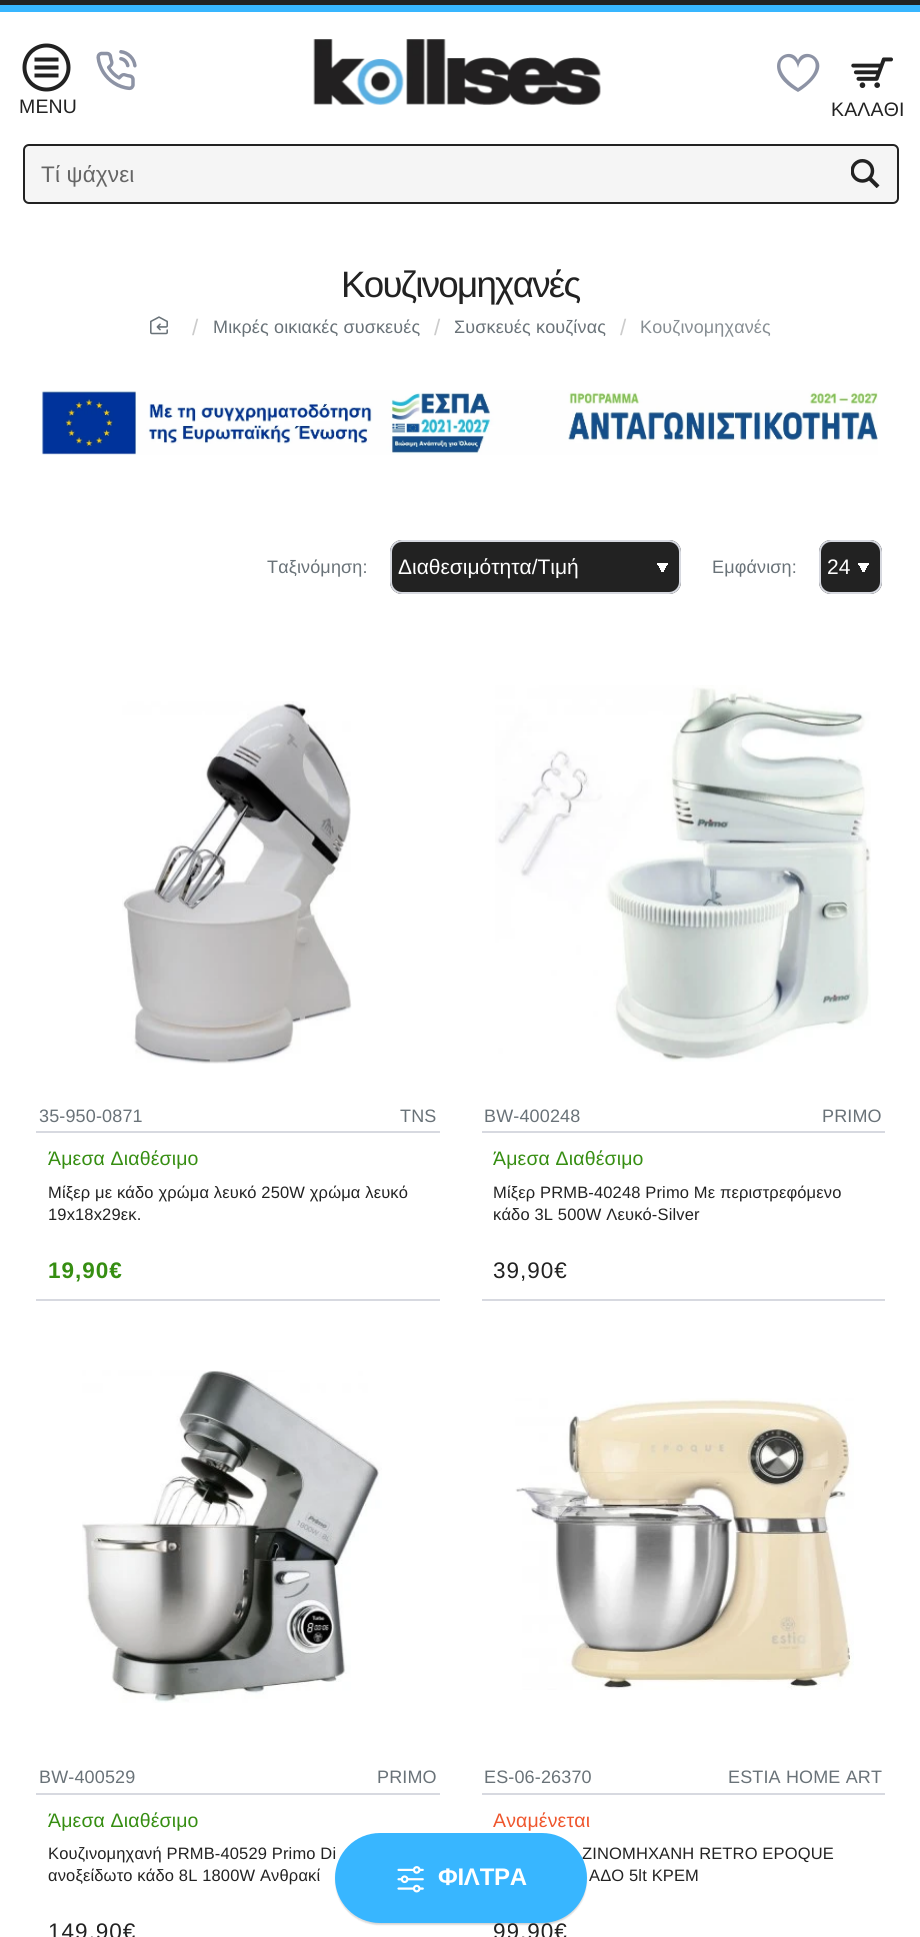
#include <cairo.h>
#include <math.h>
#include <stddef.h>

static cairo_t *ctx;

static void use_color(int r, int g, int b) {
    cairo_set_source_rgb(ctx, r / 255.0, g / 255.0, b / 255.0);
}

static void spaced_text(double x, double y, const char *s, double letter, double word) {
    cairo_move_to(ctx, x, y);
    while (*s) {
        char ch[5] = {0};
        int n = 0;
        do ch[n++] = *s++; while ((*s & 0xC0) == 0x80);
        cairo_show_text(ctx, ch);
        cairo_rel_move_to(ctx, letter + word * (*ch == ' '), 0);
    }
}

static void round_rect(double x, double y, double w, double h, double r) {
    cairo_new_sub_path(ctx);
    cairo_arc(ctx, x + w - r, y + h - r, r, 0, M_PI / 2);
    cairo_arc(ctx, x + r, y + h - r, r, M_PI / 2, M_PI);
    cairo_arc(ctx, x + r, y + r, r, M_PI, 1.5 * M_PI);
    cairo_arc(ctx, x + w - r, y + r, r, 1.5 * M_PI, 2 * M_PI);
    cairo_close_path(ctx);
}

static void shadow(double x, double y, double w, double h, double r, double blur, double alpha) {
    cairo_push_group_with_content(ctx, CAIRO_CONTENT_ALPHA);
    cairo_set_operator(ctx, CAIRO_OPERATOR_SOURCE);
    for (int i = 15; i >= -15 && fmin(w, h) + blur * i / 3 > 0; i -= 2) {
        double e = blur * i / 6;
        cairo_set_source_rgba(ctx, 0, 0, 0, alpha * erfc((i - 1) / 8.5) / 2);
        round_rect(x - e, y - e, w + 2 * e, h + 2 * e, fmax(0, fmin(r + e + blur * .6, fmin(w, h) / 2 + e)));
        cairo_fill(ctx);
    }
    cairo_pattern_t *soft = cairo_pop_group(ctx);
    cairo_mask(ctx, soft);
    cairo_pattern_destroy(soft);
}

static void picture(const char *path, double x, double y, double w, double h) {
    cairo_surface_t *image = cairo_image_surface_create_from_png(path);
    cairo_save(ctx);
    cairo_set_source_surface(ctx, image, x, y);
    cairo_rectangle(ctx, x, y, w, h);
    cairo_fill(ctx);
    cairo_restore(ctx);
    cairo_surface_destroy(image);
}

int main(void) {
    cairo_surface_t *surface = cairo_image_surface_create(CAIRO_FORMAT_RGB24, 920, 1937);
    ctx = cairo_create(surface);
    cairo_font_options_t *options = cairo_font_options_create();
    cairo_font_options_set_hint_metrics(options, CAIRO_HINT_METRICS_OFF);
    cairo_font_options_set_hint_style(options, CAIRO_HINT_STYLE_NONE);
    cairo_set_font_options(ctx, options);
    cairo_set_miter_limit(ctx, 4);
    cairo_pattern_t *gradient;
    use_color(255, 255, 255);
    cairo_paint(ctx);
    use_color(56, 182, 255);
    cairo_rectangle(ctx, 0, 5, 920, 7);
    cairo_fill(ctx);
    use_color(34, 34, 34);
    cairo_rectangle(ctx, 0, 0, 920, 5);
    cairo_fill(ctx);
    picture("img1.png", 96, 50, 41, 41);
    picture("img2.png", 313, 39, 288, 66);
    use_color(141, 147, 165);
    cairo_new_path(ctx);
    cairo_move_to(ctx, 798, 68);
    cairo_curve_to(ctx, 803, 44, 835, 64, 798, 88);
    cairo_curve_to(ctx, 761, 64, 793, 44, 798, 68);
    cairo_close_path(ctx);
    cairo_move_to(ctx, 777, 66);
    cairo_curve_to(ctx, 777, 78, 789, 87, 798, 92);
    cairo_curve_to(ctx, 807, 87, 826, 71, 817, 59);
    cairo_curve_to(ctx, 812, 52, 801, 52, 798, 60);
    cairo_curve_to(ctx, 793, 49, 777, 54, 777, 66);
    cairo_close_path(ctx);
    cairo_fill(ctx);
    picture("img3.png", 22, 43, 49, 49);
    cairo_select_font_face(ctx, "Liberation Sans", CAIRO_FONT_SLANT_NORMAL, CAIRO_FONT_WEIGHT_NORMAL);
    cairo_set_font_size(ctx, 19.5);
    use_color(34, 34, 34);
    spaced_text(19, 113, "MENU", 0.15, 0);
    picture("img4.png", 851, 57, 42, 31);
    spaced_text(831, 116, "ΚΑΛΑΘΙ", 0.15, 0);
    use_color(245, 245, 245);
    round_rect(24, 145, 874, 58, 5);
    cairo_fill_preserve(ctx);
    use_color(34, 34, 34);
    cairo_stroke(ctx);
    cairo_set_font_size(ctx, 22.5);
    use_color(102, 102, 102);
    spaced_text(41, 182, "Τί ψάχνει", 0.15, 0);
    picture("img5.png", 851, 159, 29, 29);
    cairo_set_font_size(ctx, 36.75);
    use_color(34, 34, 34);
    spaced_text(341, 297, "Κουζινομηχανές", -1.75, 0);
    picture("img6.png", 150, 316, 18, 19);
    cairo_set_font_size(ctx, 22.5);
    use_color(204, 204, 204);
    spaced_text(192, 335, "/", 0.15, 0);
    cairo_set_font_size(ctx, 18);
    use_color(105, 114, 120);
    spaced_text(213, 333, "Μικρές οικιακές συσκευές", 0.15, 0);
    cairo_set_font_size(ctx, 22.5);
    use_color(204, 204, 204);
    spaced_text(434, 335, "/", 0.15, 0);
    cairo_set_font_size(ctx, 18);
    use_color(105, 114, 120);
    spaced_text(454, 333, "Συσκευές κουζίνας", 0.15, 0);
    cairo_set_font_size(ctx, 22.5);
    use_color(204, 204, 204);
    spaced_text(620, 335, "/", 0.15, 0);
    cairo_set_font_size(ctx, 18);
    use_color(135, 142, 147);
    spaced_text(640, 333, "Κουζινομηχανές", 0.15, 0);
    picture("img7.png", 41, 390, 837, 65);
    use_color(105, 114, 120);
    spaced_text(267, 573, "Ταξινόμηση:", 0.15, 0);
    use_color(34, 34, 34);
    round_rect(390, 540, 291, 54, 12);
    cairo_fill(ctx);
    gradient = cairo_pattern_create_linear(673, 561, 652, 573);
    cairo_pattern_add_color_stop_rgba(gradient, 0.63, 1, 1, 1, 1);
    cairo_pattern_add_color_stop_rgba(gradient, 0.63, 0.133, 0.133, 0.133, 1);
    cairo_set_source(ctx, gradient);
    cairo_pattern_destroy(gradient);
    cairo_rectangle(ctx, 657, 563, 11, 9);
    cairo_fill(ctx);
    gradient = cairo_pattern_create_linear(652, 561, 673, 573);
    cairo_pattern_add_color_stop_rgba(gradient, 0.63, 0.133, 0.133, 0.133, 0);
    cairo_pattern_add_color_stop_rgba(gradient, 0.63, 0.133, 0.133, 0.133, 1);
    cairo_set_source(ctx, gradient);
    cairo_pattern_destroy(gradient);
    cairo_rectangle(ctx, 664, 565, 4, 7);
    cairo_fill(ctx);
    round_rect(391, 541, 289, 52, 11);
    use_color(215, 217, 224);
    cairo_stroke(ctx);
    cairo_set_font_size(ctx, 21);
    use_color(255, 255, 255);
    cairo_move_to(ctx, 398, 574);
    cairo_show_text(ctx, "Διαθεσιμότητα/Τιμή");
    cairo_set_font_size(ctx, 18);
    use_color(105, 114, 120);
    spaced_text(712, 573, "Εμφάνιση:", 0.15, 0);
    use_color(34, 34, 34);
    round_rect(819, 540, 63, 54, 12);
    cairo_fill(ctx);
    gradient = cairo_pattern_create_linear(874, 561, 853, 573);
    cairo_pattern_add_color_stop_rgba(gradient, 0.63, 1, 1, 1, 1);
    cairo_pattern_add_color_stop_rgba(gradient, 0.63, 0.133, 0.133, 0.133, 1);
    cairo_set_source(ctx, gradient);
    cairo_pattern_destroy(gradient);
    cairo_rectangle(ctx, 858, 563, 11, 9);
    cairo_fill(ctx);
    gradient = cairo_pattern_create_linear(853, 561, 874, 573);
    cairo_pattern_add_color_stop_rgba(gradient, 0.63, 0.133, 0.133, 0.133, 0);
    cairo_pattern_add_color_stop_rgba(gradient, 0.63, 0.133, 0.133, 0.133, 1);
    cairo_set_source(ctx, gradient);
    cairo_pattern_destroy(gradient);
    cairo_rectangle(ctx, 865, 565, 4, 7);
    cairo_fill(ctx);
    round_rect(820, 541, 61, 52, 11);
    use_color(215, 217, 224);
    cairo_stroke(ctx);
    cairo_set_font_size(ctx, 21);
    use_color(255, 255, 255);
    cairo_move_to(ctx, 827, 574);
    cairo_show_text(ctx, "24");
    picture("img8.png", 122, 701, 230, 363);
    use_color(215, 217, 224);
    cairo_rectangle(ctx, 36, 1299, 404, 2);
    cairo_fill(ctx);
    cairo_rectangle(ctx, 36, 1131, 404, 2);
    cairo_fill(ctx);
    cairo_set_font_size(ctx, 18);
    use_color(105, 114, 120);
    spaced_text(39, 1122, "35-950-0871", 0.15, 0);
    spaced_text(400, 1122, "TNS", 0.15, 0);
    cairo_set_font_size(ctx, 19.5);
    use_color(54, 142, 18);
    spaced_text(48, 1165, "Άμεσα Διαθέσιμο", 0.15, 0);
    cairo_set_font_size(ctx, 16.5);
    use_color(34, 34, 34);
    spaced_text(48, 1198, "Μίξερ με κάδο χρώμα λευκό 250W χρώμα λευκό", 0.15, 0);
    spaced_text(48, 1220, "19x18x29εκ.", 0.15, 0);
    cairo_select_font_face(ctx, "Liberation Sans", CAIRO_FONT_SLANT_NORMAL, CAIRO_FONT_WEIGHT_BOLD);
    cairo_set_font_size(ctx, 22.5);
    use_color(54, 142, 18);
    spaced_text(48, 1278, "19,90€", 1, 0);
    picture("img9.png", 495, 685, 376, 377);
    use_color(215, 217, 224);
    cairo_rectangle(ctx, 482, 1299, 403, 2);
    cairo_fill(ctx);
    cairo_rectangle(ctx, 482, 1131, 403, 2);
    cairo_fill(ctx);
    cairo_select_font_face(ctx, "Liberation Sans", CAIRO_FONT_SLANT_NORMAL, CAIRO_FONT_WEIGHT_NORMAL);
    cairo_set_font_size(ctx, 18);
    use_color(105, 114, 120);
    spaced_text(484, 1122, "BW-400248", 0.15, 0);
    spaced_text(822, 1122, "PRIMO", 0.15, 0);
    cairo_set_font_size(ctx, 19.5);
    use_color(54, 142, 18);
    spaced_text(493, 1165, "Άμεσα Διαθέσιμο", 0.15, 0);
    cairo_set_font_size(ctx, 16.5);
    use_color(34, 34, 34);
    spaced_text(493, 1198, "Μίξερ PRMB-40248 Primo Με περιστρεφόμενο", 0.15, 0);
    spaced_text(493, 1220, "κάδο 3L 500W Λευκό-Silver", 0.15, 0);
    cairo_set_font_size(ctx, 22.5);
    spaced_text(493, 1278, "39,90€", 1, 0);
    picture("img10.png", 82, 1370, 300, 333);
    use_color(215, 217, 224);
    cairo_rectangle(ctx, 36, 1793, 404, 2);
    cairo_fill(ctx);
    cairo_set_font_size(ctx, 18);
    use_color(105, 114, 120);
    spaced_text(39, 1783, "BW-400529", 0.15, 0);
    spaced_text(377, 1783, "PRIMO", 0.15, 0);
    cairo_set_font_size(ctx, 19.5);
    use_color(54, 142, 18);
    spaced_text(48, 1827, "Άμεσα Διαθέσιμο", 0.15, 0);
    cairo_set_font_size(ctx, 16.5);
    use_color(34, 34, 34);
    spaced_text(48, 1859, "Κουζινομηχανή PRMB-40529 Primo Di", 0.15, 0);
    spaced_text(48, 1881, "ανοξείδωτο κάδο 8L 1800W Ανθρακί", 0.15, 0);
    cairo_set_font_size(ctx, 22.5);
    spaced_text(48, 1939, "149,90€", 1, 0);
    picture("img11.png", 515, 1398, 339, 292);
    use_color(215, 217, 224);
    cairo_rectangle(ctx, 482, 1793, 403, 2);
    cairo_fill(ctx);
    cairo_set_font_size(ctx, 18);
    use_color(105, 114, 120);
    spaced_text(484, 1783, "ES-06-26370", 0.15, 0);
    spaced_text(728, 1783, "ESTIA HOME ART", 0.15, 0);
    cairo_set_font_size(ctx, 19.5);
    use_color(239, 86, 45);
    spaced_text(493, 1827, "Αναμένεται", 0.15, 0);
    cairo_set_font_size(ctx, 16.5);
    use_color(34, 34, 34);
    spaced_text(582, 1859, "ΖΙΝΟΜΗΧΑΝΗ RETRO EPOQUE", 0.15, 0);
    spaced_text(589, 1881, "ΑΔΟ 5lt ΚΡΕΜ", 0.15, 0);
    cairo_set_font_size(ctx, 22.5);
    spaced_text(493, 1939, "99,90€", 1, 0);
    use_color(0, 0, 0);
    shadow(339, 1841, 245, 82, 41, 2, 0.1);
    shadow(338, 1836, 247, 87, 43.5, 1, 0.1);
    shadow(335, 1835, 252, 90, 45, 0.5, 0.1);
    use_color(56, 182, 255);
    round_rect(335, 1833, 252, 90, 45);
    cairo_fill(ctx);
    picture("img12.png", 397, 1866, 27, 27);
    cairo_select_font_face(ctx, "Liberation Sans", CAIRO_FONT_SLANT_NORMAL, CAIRO_FONT_WEIGHT_BOLD);
    cairo_set_font_size(ctx, 24);
    use_color(255, 255, 255);
    spaced_text(438, 1885, "ΦΙΛΤΡΑ", -0.25, 0);
    cairo_surface_write_to_png(surface, "result.png");
    cairo_font_options_destroy(options);
    cairo_destroy(ctx);
    cairo_surface_destroy(surface);
    return 0;
}
